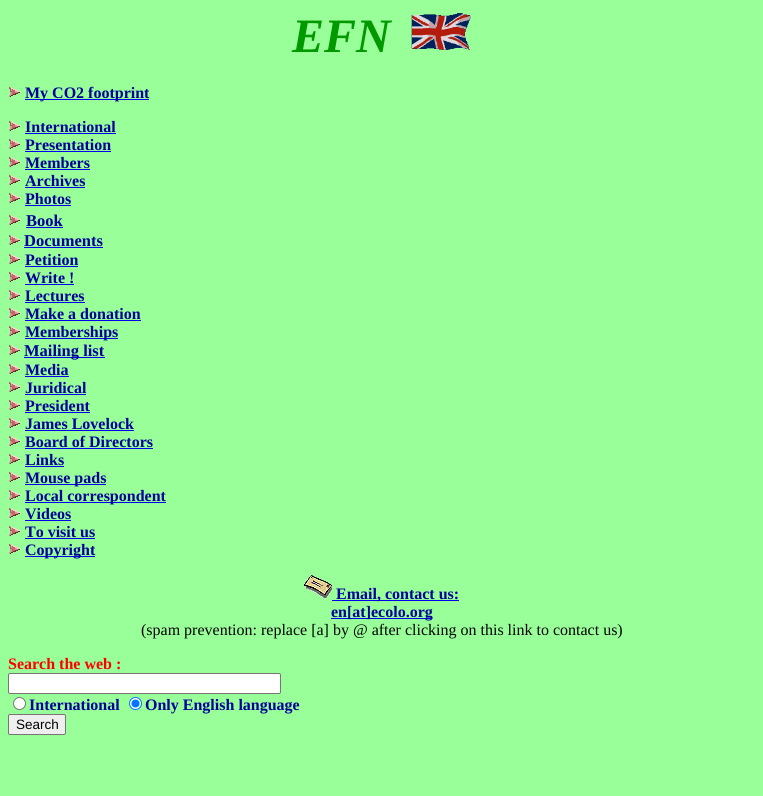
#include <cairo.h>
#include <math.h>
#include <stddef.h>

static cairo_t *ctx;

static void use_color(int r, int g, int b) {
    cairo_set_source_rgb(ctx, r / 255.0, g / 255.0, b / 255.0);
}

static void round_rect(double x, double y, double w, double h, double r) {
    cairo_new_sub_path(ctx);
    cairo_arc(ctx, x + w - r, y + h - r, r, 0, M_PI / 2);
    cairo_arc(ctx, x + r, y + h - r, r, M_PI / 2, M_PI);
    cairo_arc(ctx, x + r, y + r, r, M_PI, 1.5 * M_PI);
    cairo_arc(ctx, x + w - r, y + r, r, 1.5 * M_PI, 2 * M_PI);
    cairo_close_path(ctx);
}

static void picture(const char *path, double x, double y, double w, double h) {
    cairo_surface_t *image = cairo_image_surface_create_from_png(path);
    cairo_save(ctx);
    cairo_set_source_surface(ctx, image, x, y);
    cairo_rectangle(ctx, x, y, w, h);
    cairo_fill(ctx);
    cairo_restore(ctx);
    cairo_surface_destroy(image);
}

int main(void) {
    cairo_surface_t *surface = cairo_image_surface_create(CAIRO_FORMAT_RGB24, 763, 796);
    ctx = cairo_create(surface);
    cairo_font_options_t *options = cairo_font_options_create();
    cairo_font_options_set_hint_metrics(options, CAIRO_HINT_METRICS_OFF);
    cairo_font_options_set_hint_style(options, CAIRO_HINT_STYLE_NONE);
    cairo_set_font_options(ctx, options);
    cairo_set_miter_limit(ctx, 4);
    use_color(153, 255, 153);
    cairo_paint(ctx);
    cairo_select_font_face(ctx, "Liberation Serif", CAIRO_FONT_SLANT_ITALIC, CAIRO_FONT_WEIGHT_BOLD);
    cairo_set_font_size(ctx, 48);
    use_color(0, 153, 0);
    cairo_move_to(ctx, 292, 52);
    cairo_show_text(ctx, "EFN");
    picture("img1.png", 411, 13, 60, 37);
    picture("img2.png", 9, 87, 11, 10);
    use_color(0, 0, 238);
    cairo_rectangle(ctx, 25, 99, 124, 1);
    cairo_fill(ctx);
    cairo_select_font_face(ctx, "Liberation Serif", CAIRO_FONT_SLANT_NORMAL, CAIRO_FONT_WEIGHT_BOLD);
    cairo_set_font_size(ctx, 16);
    use_color(0, 0, 153);
    cairo_move_to(ctx, 25, 98);
    cairo_show_text(ctx, "My CO2 footprint");
    picture("img2.png", 9, 121, 11, 10);
    cairo_move_to(ctx, 25, 132);
    cairo_show_text(ctx, "International");
    use_color(0, 0, 238);
    cairo_rectangle(ctx, 25, 133, 91, 1);
    cairo_fill(ctx);
    picture("img2.png", 9, 139, 11, 10);
    use_color(0, 0, 153);
    cairo_move_to(ctx, 25, 150);
    cairo_show_text(ctx, "Presentation");
    use_color(0, 0, 238);
    cairo_rectangle(ctx, 25, 151, 86, 1);
    cairo_fill(ctx);
    picture("img2.png", 9, 157, 11, 10);
    use_color(0, 0, 153);
    cairo_move_to(ctx, 25, 168);
    cairo_show_text(ctx, "Members");
    use_color(0, 0, 238);
    cairo_rectangle(ctx, 25, 169, 65, 1);
    cairo_fill(ctx);
    picture("img2.png", 9, 175, 11, 10);
    use_color(0, 0, 153);
    cairo_move_to(ctx, 25, 186);
    cairo_show_text(ctx, "Archives");
    use_color(0, 0, 238);
    cairo_rectangle(ctx, 25, 187, 60, 1);
    cairo_fill(ctx);
    picture("img2.png", 9, 193, 11, 10);
    use_color(0, 0, 153);
    cairo_move_to(ctx, 25, 204);
    cairo_show_text(ctx, "Photos");
    use_color(0, 0, 238);
    cairo_rectangle(ctx, 25, 205, 46, 1);
    cairo_fill(ctx);
    picture("img2.png", 9, 215, 11, 10);
    cairo_set_font_size(ctx, 16.5);
    use_color(0, 0, 153);
    cairo_move_to(ctx, 26, 226);
    cairo_show_text(ctx, "Book");
    use_color(0, 0, 238);
    cairo_rectangle(ctx, 26, 227, 37, 1);
    cairo_fill(ctx);
    picture("img2.png", 9, 235, 11, 10);
    use_color(0, 0, 153);
    cairo_move_to(ctx, 24, 246);
    cairo_show_text(ctx, "Documents");
    use_color(0, 0, 238);
    cairo_rectangle(ctx, 24, 247, 79, 1);
    cairo_fill(ctx);
    picture("img2.png", 9, 254, 11, 10);
    cairo_set_font_size(ctx, 16);
    use_color(0, 0, 153);
    cairo_move_to(ctx, 25, 265);
    cairo_show_text(ctx, "Petition");
    use_color(0, 0, 238);
    cairo_rectangle(ctx, 25, 266, 53, 1);
    cairo_fill(ctx);
    picture("img2.png", 9, 272, 11, 10);
    use_color(0, 0, 153);
    cairo_move_to(ctx, 25, 283);
    cairo_show_text(ctx, "Write !");
    use_color(0, 0, 238);
    cairo_rectangle(ctx, 25, 284, 49, 1);
    cairo_fill(ctx);
    picture("img2.png", 9, 290, 11, 10);
    use_color(0, 0, 153);
    cairo_move_to(ctx, 25, 301);
    cairo_show_text(ctx, "Lectures");
    use_color(0, 0, 238);
    cairo_rectangle(ctx, 25, 302, 60, 1);
    cairo_fill(ctx);
    picture("img2.png", 9, 308, 11, 10);
    use_color(0, 0, 153);
    cairo_move_to(ctx, 25, 319);
    cairo_show_text(ctx, "Make a donation");
    use_color(0, 0, 238);
    cairo_rectangle(ctx, 25, 320, 116, 1);
    cairo_fill(ctx);
    picture("img2.png", 9, 326, 11, 10);
    cairo_rectangle(ctx, 25, 338, 93, 1);
    cairo_fill(ctx);
    use_color(0, 0, 153);
    cairo_move_to(ctx, 25, 337);
    cairo_show_text(ctx, "Memberships");
    picture("img2.png", 9, 345, 11, 10);
    use_color(0, 0, 238);
    cairo_rectangle(ctx, 24, 357, 81, 1);
    cairo_fill(ctx);
    cairo_set_font_size(ctx, 16.5);
    use_color(0, 0, 153);
    cairo_move_to(ctx, 24, 356);
    cairo_show_text(ctx, "Mailing list");
    picture("img2.png", 9, 364, 11, 10);
    cairo_set_font_size(ctx, 16);
    cairo_move_to(ctx, 25, 375);
    cairo_show_text(ctx, "Media");
    use_color(0, 0, 238);
    cairo_rectangle(ctx, 25, 376, 44, 1);
    cairo_fill(ctx);
    picture("img2.png", 9, 382, 11, 10);
    use_color(0, 0, 153);
    cairo_move_to(ctx, 25, 393);
    cairo_show_text(ctx, "Juridical");
    use_color(0, 0, 238);
    cairo_rectangle(ctx, 25, 394, 61, 1);
    cairo_fill(ctx);
    picture("img2.png", 9, 400, 11, 10);
    use_color(0, 0, 153);
    cairo_move_to(ctx, 25, 411);
    cairo_show_text(ctx, "President");
    use_color(0, 0, 238);
    cairo_rectangle(ctx, 25, 412, 65, 1);
    cairo_fill(ctx);
    picture("img2.png", 9, 418, 11, 10);
    use_color(0, 0, 153);
    cairo_move_to(ctx, 25, 429);
    cairo_show_text(ctx, "James Lovelock");
    use_color(0, 0, 238);
    cairo_rectangle(ctx, 25, 430, 109, 1);
    cairo_fill(ctx);
    picture("img2.png", 9, 436, 11, 10);
    use_color(0, 0, 153);
    cairo_move_to(ctx, 25, 447);
    cairo_show_text(ctx, "Board of Directors");
    use_color(0, 0, 238);
    cairo_rectangle(ctx, 25, 448, 128, 1);
    cairo_fill(ctx);
    picture("img2.png", 9, 454, 11, 10);
    use_color(0, 0, 153);
    cairo_move_to(ctx, 25, 465);
    cairo_show_text(ctx, "Links");
    use_color(0, 0, 238);
    cairo_rectangle(ctx, 25, 466, 39, 1);
    cairo_fill(ctx);
    picture("img2.png", 9, 472, 11, 10);
    cairo_rectangle(ctx, 25, 484, 81, 1);
    cairo_fill(ctx);
    use_color(0, 0, 153);
    cairo_move_to(ctx, 25, 483);
    cairo_show_text(ctx, "Mouse pads");
    picture("img2.png", 9, 490, 11, 10);
    use_color(0, 0, 238);
    cairo_rectangle(ctx, 25, 502, 141, 1);
    cairo_fill(ctx);
    use_color(0, 0, 153);
    cairo_move_to(ctx, 25, 501);
    cairo_show_text(ctx, "Local correspondent");
    picture("img2.png", 9, 508, 11, 10);
    cairo_move_to(ctx, 25, 519);
    cairo_show_text(ctx, "Videos");
    use_color(0, 0, 238);
    cairo_rectangle(ctx, 25, 520, 46, 1);
    cairo_fill(ctx);
    picture("img2.png", 9, 526, 11, 10);
    use_color(0, 0, 153);
    cairo_move_to(ctx, 25, 537);
    cairo_show_text(ctx, "To visit us");
    use_color(0, 0, 238);
    cairo_rectangle(ctx, 25, 538, 70, 1);
    cairo_fill(ctx);
    picture("img2.png", 9, 544, 11, 10);
    cairo_rectangle(ctx, 25, 556, 70, 1);
    cairo_fill(ctx);
    use_color(0, 0, 153);
    cairo_move_to(ctx, 25, 555);
    cairo_show_text(ctx, "Copyright");
    picture("img3.png", 304, 575, 28, 24);
    use_color(0, 0, 238);
    cairo_rectangle(ctx, 332, 600, 127, 1);
    cairo_fill(ctx);
    use_color(0, 0, 153);
    cairo_move_to(ctx, 336, 599);
    cairo_show_text(ctx, "Email, contact us:");
    use_color(0, 0, 238);
    cairo_rectangle(ctx, 331, 618, 101, 1);
    cairo_fill(ctx);
    use_color(0, 0, 153);
    cairo_move_to(ctx, 331, 617);
    cairo_show_text(ctx, "en[at]ecolo.org");
    cairo_select_font_face(ctx, "Liberation Serif", CAIRO_FONT_SLANT_NORMAL, CAIRO_FONT_WEIGHT_NORMAL);
    use_color(0, 0, 0);
    cairo_move_to(ctx, 141, 635);
    cairo_show_text(ctx, "(spam prevention: replace [a] by @ after clicking on this link to contact us)");
    cairo_select_font_face(ctx, "Liberation Serif", CAIRO_FONT_SLANT_NORMAL, CAIRO_FONT_WEIGHT_BOLD);
    use_color(255, 0, 0);
    cairo_move_to(ctx, 8, 669);
    cairo_show_text(ctx, "Search the web :");
    use_color(255, 255, 255);
    round_rect(8.5, 673.5, 272, 20, 1.5);
    cairo_fill_preserve(ctx);
    use_color(118, 118, 118);
    cairo_set_line_width(ctx, 1);
    cairo_stroke(ctx);
    use_color(255, 255, 255);
    cairo_arc(ctx, 19.5, 703.5, 6, 0, 2 * M_PI);
    cairo_fill_preserve(ctx);
    use_color(118, 118, 118);
    cairo_stroke(ctx);
    use_color(0, 0, 153);
    cairo_move_to(ctx, 29, 710);
    cairo_show_text(ctx, "International");
    use_color(255, 255, 255);
    cairo_new_path(ctx);
    cairo_arc(ctx, 135.5, 703.5, 6, 0, 2 * M_PI);
    cairo_fill_preserve(ctx);
    use_color(0, 117, 255);
    cairo_stroke(ctx);
    cairo_arc(ctx, 135.5, 703.5, 4, 0, 2 * M_PI);
    cairo_fill(ctx);
    use_color(0, 0, 153);
    cairo_move_to(ctx, 145, 710);
    cairo_show_text(ctx, "Only English language");
    use_color(239, 239, 239);
    round_rect(8.5, 714.5, 57, 20, 1.5);
    cairo_fill_preserve(ctx);
    use_color(118, 118, 118);
    cairo_stroke(ctx);
    cairo_select_font_face(ctx, "Liberation Sans", CAIRO_FONT_SLANT_NORMAL, CAIRO_FONT_WEIGHT_NORMAL);
    cairo_set_font_size(ctx, 13.5);
    use_color(0, 0, 0);
    cairo_move_to(ctx, 16, 729);
    cairo_show_text(ctx, "Search");
    cairo_surface_write_to_png(surface, "result.png");
    cairo_font_options_destroy(options);
    cairo_destroy(ctx);
    cairo_surface_destroy(surface);
    return 0;
}
